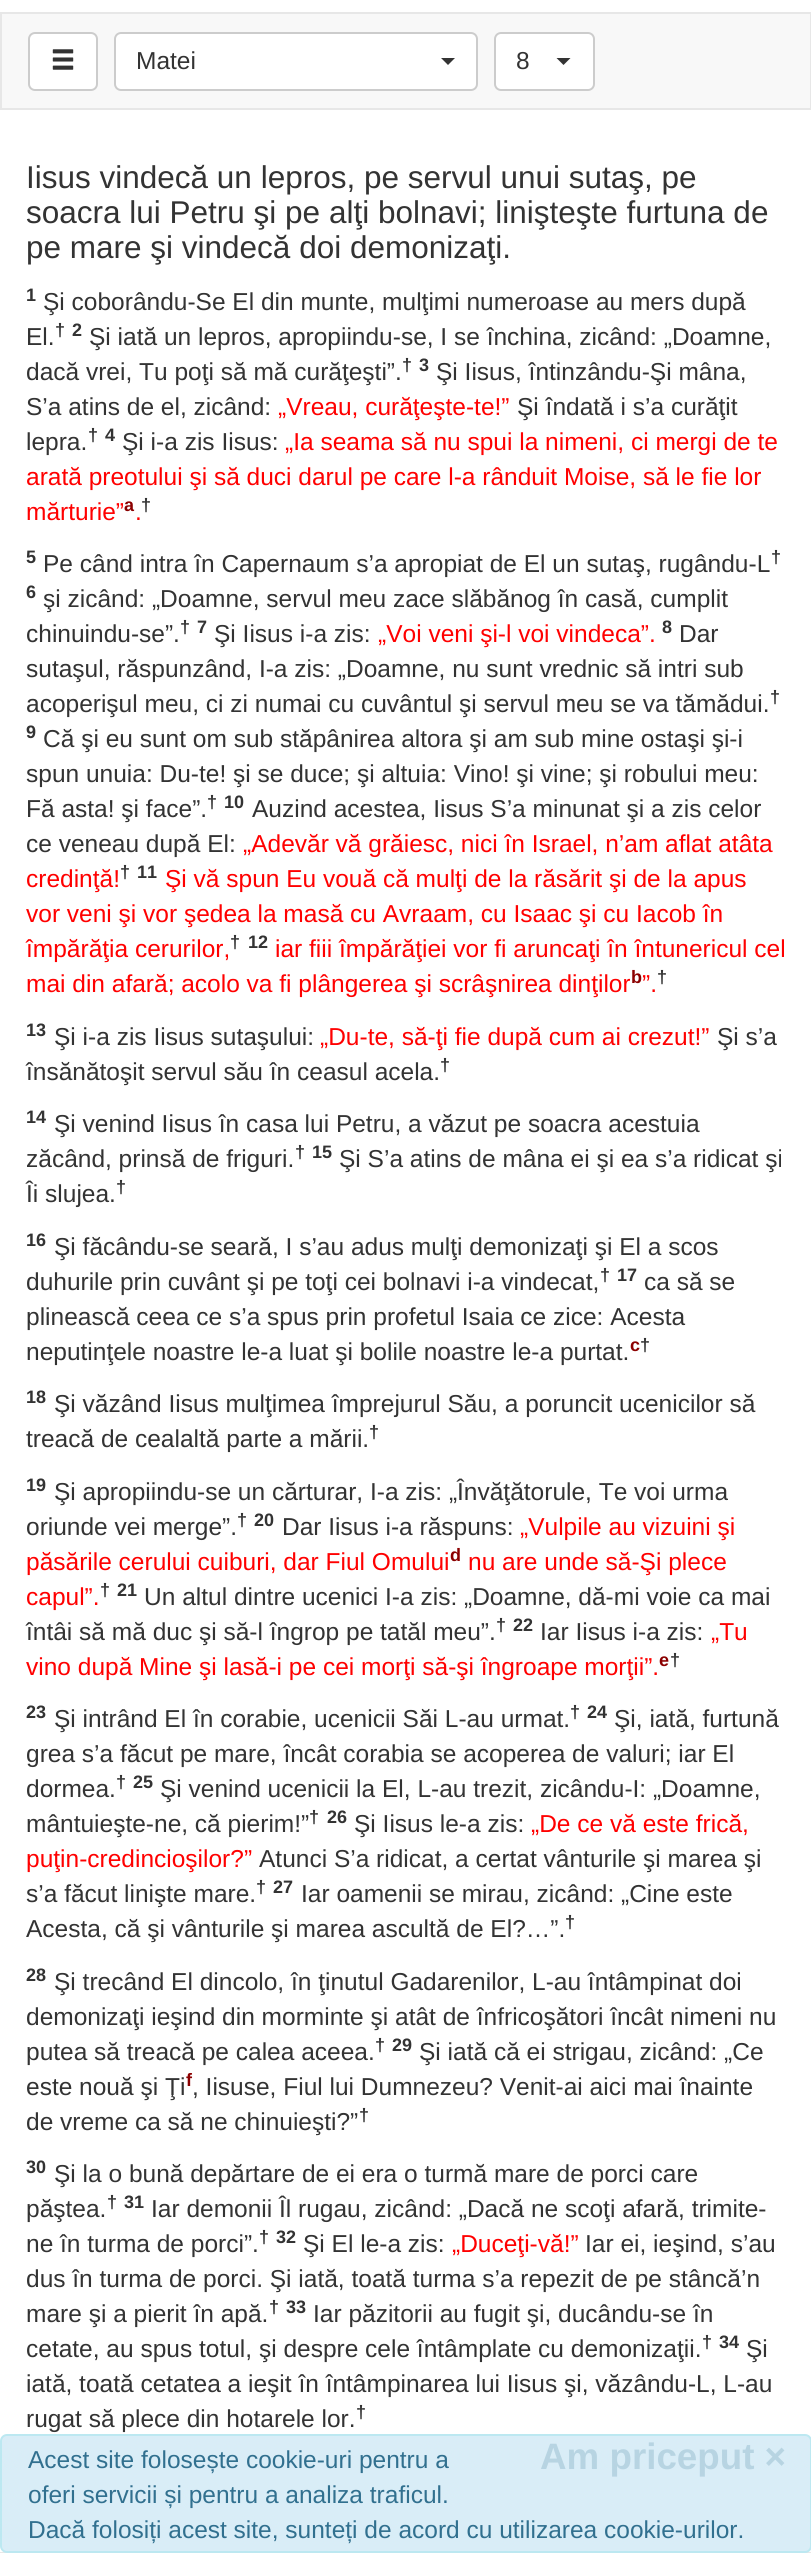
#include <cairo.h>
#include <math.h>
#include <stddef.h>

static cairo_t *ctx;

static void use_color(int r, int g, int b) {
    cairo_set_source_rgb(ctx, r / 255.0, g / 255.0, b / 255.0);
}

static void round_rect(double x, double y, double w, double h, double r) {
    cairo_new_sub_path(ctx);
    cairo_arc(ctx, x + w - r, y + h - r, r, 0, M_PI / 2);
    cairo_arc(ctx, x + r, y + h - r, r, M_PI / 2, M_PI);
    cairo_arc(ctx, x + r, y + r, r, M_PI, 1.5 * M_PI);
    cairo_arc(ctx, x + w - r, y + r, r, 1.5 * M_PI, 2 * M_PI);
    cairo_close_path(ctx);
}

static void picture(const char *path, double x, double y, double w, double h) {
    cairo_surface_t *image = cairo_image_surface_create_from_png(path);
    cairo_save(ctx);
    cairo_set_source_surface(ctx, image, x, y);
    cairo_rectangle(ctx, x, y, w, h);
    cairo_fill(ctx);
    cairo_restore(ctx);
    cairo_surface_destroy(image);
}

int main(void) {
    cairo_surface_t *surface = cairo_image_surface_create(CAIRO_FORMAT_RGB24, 811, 2553);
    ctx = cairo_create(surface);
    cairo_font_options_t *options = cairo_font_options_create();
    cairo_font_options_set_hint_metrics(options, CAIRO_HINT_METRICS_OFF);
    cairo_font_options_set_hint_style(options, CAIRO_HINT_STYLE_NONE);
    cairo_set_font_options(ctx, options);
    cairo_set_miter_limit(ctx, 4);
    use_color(255, 255, 255);
    cairo_paint(ctx);
    use_color(248, 248, 248);
    cairo_rectangle(ctx, 1, 13, 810, 96);
    cairo_fill_preserve(ctx);
    use_color(231, 231, 231);
    cairo_stroke(ctx);
    use_color(255, 255, 255);
    round_rect(29, 33, 68, 57, 6);
    cairo_fill_preserve(ctx);
    use_color(204, 204, 204);
    cairo_stroke(ctx);
    picture("img1.png", 52, 49, 22, 21);
    use_color(255, 255, 255);
    round_rect(115, 33, 362, 57, 6);
    cairo_fill_preserve(ctx);
    use_color(204, 204, 204);
    cairo_stroke(ctx);
    cairo_select_font_face(ctx, "Liberation Sans", CAIRO_FONT_SLANT_NORMAL, CAIRO_FONT_WEIGHT_NORMAL);
    cairo_set_font_size(ctx, 24.5);
    use_color(51, 51, 51);
    cairo_move_to(ctx, 136, 69);
    cairo_show_text(ctx, "Matei");
    cairo_new_path(ctx);
    cairo_move_to(ctx, 441, 58);
    cairo_line_to(ctx, 455, 58);
    cairo_line_to(ctx, 448, 65);
    cairo_close_path(ctx);
    cairo_fill(ctx);
    use_color(255, 255, 255);
    round_rect(495, 33, 99, 57, 6);
    cairo_fill_preserve(ctx);
    use_color(204, 204, 204);
    cairo_stroke(ctx);
    use_color(51, 51, 51);
    cairo_move_to(ctx, 516, 69);
    cairo_show_text(ctx, "8");
    cairo_new_path(ctx);
    cairo_move_to(ctx, 556.5, 58);
    cairo_line_to(ctx, 570.5, 58);
    cairo_line_to(ctx, 563.5, 65);
    cairo_close_path(ctx);
    cairo_fill(ctx);
    cairo_set_font_size(ctx, 31.5);
    cairo_move_to(ctx, 26, 188);
    cairo_show_text(ctx, "Iisus vindecă un lepros, pe servul unui sutaş, pe");
    cairo_move_to(ctx, 26, 223);
    cairo_show_text(ctx, "soacra lui Petru şi pe alţi bolnavi; linişteşte furtuna de");
    cairo_move_to(ctx, 26, 258);
    cairo_show_text(ctx, "pe mare şi vindecă doi demonizaţi.");
    cairo_select_font_face(ctx, "Liberation Sans", CAIRO_FONT_SLANT_NORMAL, CAIRO_FONT_WEIGHT_BOLD);
    cairo_set_font_size(ctx, 18);
    cairo_move_to(ctx, 26, 301);
    cairo_show_text(ctx, "1");
    cairo_select_font_face(ctx, "Liberation Sans", CAIRO_FONT_SLANT_NORMAL, CAIRO_FONT_WEIGHT_NORMAL);
    cairo_set_font_size(ctx, 24.5);
    cairo_move_to(ctx, 43, 310);
    cairo_show_text(ctx, "Şi coborându-Se El din munte, mulţimi numeroase au mers după");
    cairo_move_to(ctx, 26, 345);
    cairo_show_text(ctx, "El.");
    cairo_select_font_face(ctx, "Liberation Sans", CAIRO_FONT_SLANT_NORMAL, CAIRO_FONT_WEIGHT_BOLD);
    cairo_set_font_size(ctx, 18);
    cairo_move_to(ctx, 55, 336);
    cairo_show_text(ctx, "†");
    cairo_move_to(ctx, 72, 336);
    cairo_show_text(ctx, "2");
    cairo_select_font_face(ctx, "Liberation Sans", CAIRO_FONT_SLANT_NORMAL, CAIRO_FONT_WEIGHT_NORMAL);
    cairo_set_font_size(ctx, 24.5);
    cairo_move_to(ctx, 89, 345);
    cairo_show_text(ctx, "Şi iată un lepros, apropiindu-se, I se închina, zicând: „Doamne,");
    cairo_move_to(ctx, 26, 380);
    cairo_show_text(ctx, "dacă vrei, Tu poţi să mă curăţeşti”.");
    cairo_select_font_face(ctx, "Liberation Sans", CAIRO_FONT_SLANT_NORMAL, CAIRO_FONT_WEIGHT_BOLD);
    cairo_set_font_size(ctx, 18);
    cairo_move_to(ctx, 402, 371);
    cairo_show_text(ctx, "†");
    cairo_move_to(ctx, 419, 371);
    cairo_show_text(ctx, "3");
    cairo_select_font_face(ctx, "Liberation Sans", CAIRO_FONT_SLANT_NORMAL, CAIRO_FONT_WEIGHT_NORMAL);
    cairo_set_font_size(ctx, 24.5);
    cairo_move_to(ctx, 436, 380);
    cairo_show_text(ctx, "Şi Iisus, întinzându-Şi mâna,");
    cairo_move_to(ctx, 26, 415);
    cairo_show_text(ctx, "S’a atins de el, zicând:");
    use_color(255, 0, 0);
    cairo_move_to(ctx, 278, 415);
    cairo_show_text(ctx, "„Vreau, curăţeşte-te!”");
    use_color(51, 51, 51);
    cairo_move_to(ctx, 517, 415);
    cairo_show_text(ctx, "Şi îndată i s’a curăţit");
    cairo_move_to(ctx, 26, 450);
    cairo_show_text(ctx, "lepra.");
    cairo_select_font_face(ctx, "Liberation Sans", CAIRO_FONT_SLANT_NORMAL, CAIRO_FONT_WEIGHT_BOLD);
    cairo_set_font_size(ctx, 18);
    cairo_move_to(ctx, 88, 441);
    cairo_show_text(ctx, "†");
    cairo_move_to(ctx, 105, 441);
    cairo_show_text(ctx, "4");
    cairo_select_font_face(ctx, "Liberation Sans", CAIRO_FONT_SLANT_NORMAL, CAIRO_FONT_WEIGHT_NORMAL);
    cairo_set_font_size(ctx, 24.5);
    cairo_move_to(ctx, 122, 450);
    cairo_show_text(ctx, "Şi i-a zis Iisus:");
    use_color(255, 0, 0);
    cairo_move_to(ctx, 285, 450);
    cairo_show_text(ctx, "„Ia seama să nu spui la nimeni, ci mergi de te");
    cairo_move_to(ctx, 26, 485);
    cairo_show_text(ctx, "arată preotului şi să duci darul pe care l-a rânduit Moise, să le fie lor");
    cairo_move_to(ctx, 26, 520);
    cairo_show_text(ctx, "mărturie”");
    cairo_select_font_face(ctx, "Liberation Sans", CAIRO_FONT_SLANT_NORMAL, CAIRO_FONT_WEIGHT_BOLD);
    cairo_set_font_size(ctx, 18);
    use_color(139, 0, 0);
    cairo_move_to(ctx, 124, 511);
    cairo_show_text(ctx, "a");
    use_color(51, 51, 51);
    cairo_move_to(ctx, 141, 511);
    cairo_show_text(ctx, "†");
    cairo_select_font_face(ctx, "Liberation Sans", CAIRO_FONT_SLANT_NORMAL, CAIRO_FONT_WEIGHT_NORMAL);
    cairo_set_font_size(ctx, 24.5);
    use_color(255, 0, 0);
    cairo_move_to(ctx, 135, 520);
    cairo_show_text(ctx, ".");
    cairo_select_font_face(ctx, "Liberation Sans", CAIRO_FONT_SLANT_NORMAL, CAIRO_FONT_WEIGHT_BOLD);
    cairo_set_font_size(ctx, 18);
    use_color(51, 51, 51);
    cairo_move_to(ctx, 26, 563);
    cairo_show_text(ctx, "5");
    cairo_select_font_face(ctx, "Liberation Sans", CAIRO_FONT_SLANT_NORMAL, CAIRO_FONT_WEIGHT_NORMAL);
    cairo_set_font_size(ctx, 24.5);
    cairo_move_to(ctx, 43, 572);
    cairo_show_text(ctx, "Pe când intra în Capernaum s’a apropiat de El un sutaş, rugându-L");
    cairo_select_font_face(ctx, "Liberation Sans", CAIRO_FONT_SLANT_NORMAL, CAIRO_FONT_WEIGHT_BOLD);
    cairo_set_font_size(ctx, 18);
    cairo_move_to(ctx, 771, 563);
    cairo_show_text(ctx, "†");
    cairo_move_to(ctx, 26, 598);
    cairo_show_text(ctx, "6");
    cairo_select_font_face(ctx, "Liberation Sans", CAIRO_FONT_SLANT_NORMAL, CAIRO_FONT_WEIGHT_NORMAL);
    cairo_set_font_size(ctx, 24.5);
    cairo_move_to(ctx, 43, 607);
    cairo_show_text(ctx, "şi zicând: „Doamne, servul meu zace slăbănog în casă, cumplit");
    cairo_move_to(ctx, 26, 642);
    cairo_show_text(ctx, "chinuindu-se”.");
    cairo_select_font_face(ctx, "Liberation Sans", CAIRO_FONT_SLANT_NORMAL, CAIRO_FONT_WEIGHT_BOLD);
    cairo_set_font_size(ctx, 18);
    cairo_move_to(ctx, 180, 633);
    cairo_show_text(ctx, "†");
    cairo_move_to(ctx, 197, 633);
    cairo_show_text(ctx, "7");
    cairo_select_font_face(ctx, "Liberation Sans", CAIRO_FONT_SLANT_NORMAL, CAIRO_FONT_WEIGHT_NORMAL);
    cairo_set_font_size(ctx, 24.5);
    cairo_move_to(ctx, 214, 642);
    cairo_show_text(ctx, "Şi Iisus i-a zis:");
    use_color(255, 0, 0);
    cairo_move_to(ctx, 378, 642);
    cairo_show_text(ctx, "„Voi veni şi-l voi vindeca”.");
    cairo_select_font_face(ctx, "Liberation Sans", CAIRO_FONT_SLANT_NORMAL, CAIRO_FONT_WEIGHT_BOLD);
    cairo_set_font_size(ctx, 18);
    use_color(51, 51, 51);
    cairo_move_to(ctx, 662, 633);
    cairo_show_text(ctx, "8");
    cairo_select_font_face(ctx, "Liberation Sans", CAIRO_FONT_SLANT_NORMAL, CAIRO_FONT_WEIGHT_NORMAL);
    cairo_set_font_size(ctx, 24.5);
    cairo_move_to(ctx, 679, 642);
    cairo_show_text(ctx, "Dar");
    cairo_move_to(ctx, 26, 677);
    cairo_show_text(ctx, "sutaşul, răspunzând, I-a zis: „Doamne, nu sunt vrednic să intri sub");
    cairo_move_to(ctx, 26, 712);
    cairo_show_text(ctx, "acoperişul meu, ci zi numai cu cuvântul şi servul meu se va tămădui.");
    cairo_select_font_face(ctx, "Liberation Sans", CAIRO_FONT_SLANT_NORMAL, CAIRO_FONT_WEIGHT_BOLD);
    cairo_set_font_size(ctx, 18);
    cairo_move_to(ctx, 770, 703);
    cairo_show_text(ctx, "†");
    cairo_move_to(ctx, 26, 738);
    cairo_show_text(ctx, "9");
    cairo_select_font_face(ctx, "Liberation Sans", CAIRO_FONT_SLANT_NORMAL, CAIRO_FONT_WEIGHT_NORMAL);
    cairo_set_font_size(ctx, 24.5);
    cairo_move_to(ctx, 43, 747);
    cairo_show_text(ctx, "Că şi eu sunt om sub stăpânirea altora şi am sub mine ostaşi şi-i");
    cairo_move_to(ctx, 26, 782);
    cairo_show_text(ctx, "spun unuia: Du-te! şi se duce; şi altuia: Vino! şi vine; şi robului meu:");
    cairo_move_to(ctx, 26, 817);
    cairo_show_text(ctx, "Fă asta! şi face”.");
    cairo_select_font_face(ctx, "Liberation Sans", CAIRO_FONT_SLANT_NORMAL, CAIRO_FONT_WEIGHT_BOLD);
    cairo_set_font_size(ctx, 18);
    cairo_move_to(ctx, 207, 808);
    cairo_show_text(ctx, "†");
    cairo_move_to(ctx, 224, 808);
    cairo_show_text(ctx, "10");
    cairo_select_font_face(ctx, "Liberation Sans", CAIRO_FONT_SLANT_NORMAL, CAIRO_FONT_WEIGHT_NORMAL);
    cairo_set_font_size(ctx, 24.5);
    cairo_move_to(ctx, 252, 817);
    cairo_show_text(ctx, "Auzind acestea, Iisus S’a minunat şi a zis celor");
    cairo_move_to(ctx, 26, 852);
    cairo_show_text(ctx, "ce veneau după El:");
    use_color(255, 0, 0);
    cairo_move_to(ctx, 243, 852);
    cairo_show_text(ctx, "„Adevăr vă grăiesc, nici în Israel, n’am aflat atâta");
    cairo_move_to(ctx, 26, 887);
    cairo_show_text(ctx, "credinţă!");
    cairo_select_font_face(ctx, "Liberation Sans", CAIRO_FONT_SLANT_NORMAL, CAIRO_FONT_WEIGHT_BOLD);
    cairo_set_font_size(ctx, 18);
    use_color(51, 51, 51);
    cairo_move_to(ctx, 120, 878);
    cairo_show_text(ctx, "†");
    cairo_move_to(ctx, 137, 878);
    cairo_show_text(ctx, "11");
    cairo_select_font_face(ctx, "Liberation Sans", CAIRO_FONT_SLANT_NORMAL, CAIRO_FONT_WEIGHT_NORMAL);
    cairo_set_font_size(ctx, 24.5);
    use_color(255, 0, 0);
    cairo_move_to(ctx, 165, 887);
    cairo_show_text(ctx, "Şi vă spun Eu vouă că mulţi de la răsărit şi de la apus");
    cairo_move_to(ctx, 26, 922);
    cairo_show_text(ctx, "vor veni şi vor şedea la masă cu Avraam, cu Isaac şi cu Iacob în");
    cairo_move_to(ctx, 26, 957);
    cairo_show_text(ctx, "împărăţia cerurilor,");
    cairo_select_font_face(ctx, "Liberation Sans", CAIRO_FONT_SLANT_NORMAL, CAIRO_FONT_WEIGHT_BOLD);
    cairo_set_font_size(ctx, 18);
    use_color(51, 51, 51);
    cairo_move_to(ctx, 230, 948);
    cairo_show_text(ctx, "†");
    cairo_move_to(ctx, 248, 948);
    cairo_show_text(ctx, "12");
    cairo_select_font_face(ctx, "Liberation Sans", CAIRO_FONT_SLANT_NORMAL, CAIRO_FONT_WEIGHT_NORMAL);
    cairo_set_font_size(ctx, 24.5);
    use_color(255, 0, 0);
    cairo_move_to(ctx, 275, 957);
    cairo_show_text(ctx, "iar fiii împărăţiei vor fi aruncaţi în întunericul cel");
    cairo_move_to(ctx, 26, 992);
    cairo_show_text(ctx, "mai din afară; acolo va fi plângerea şi scrâşnirea dinţilor");
    cairo_select_font_face(ctx, "Liberation Sans", CAIRO_FONT_SLANT_NORMAL, CAIRO_FONT_WEIGHT_BOLD);
    cairo_set_font_size(ctx, 18);
    use_color(139, 0, 0);
    cairo_move_to(ctx, 631, 983);
    cairo_show_text(ctx, "b");
    cairo_select_font_face(ctx, "Liberation Sans", CAIRO_FONT_SLANT_NORMAL, CAIRO_FONT_WEIGHT_NORMAL);
    cairo_set_font_size(ctx, 24.5);
    use_color(255, 0, 0);
    cairo_move_to(ctx, 642, 992);
    cairo_show_text(ctx, "”.");
    cairo_select_font_face(ctx, "Liberation Sans", CAIRO_FONT_SLANT_NORMAL, CAIRO_FONT_WEIGHT_BOLD);
    cairo_set_font_size(ctx, 18);
    use_color(51, 51, 51);
    cairo_move_to(ctx, 657, 983);
    cairo_show_text(ctx, "†");
    cairo_move_to(ctx, 26, 1036);
    cairo_show_text(ctx, "13");
    cairo_select_font_face(ctx, "Liberation Sans", CAIRO_FONT_SLANT_NORMAL, CAIRO_FONT_WEIGHT_NORMAL);
    cairo_set_font_size(ctx, 24.5);
    cairo_move_to(ctx, 54, 1045);
    cairo_show_text(ctx, "Şi i-a zis Iisus sutaşului:");
    use_color(255, 0, 0);
    cairo_move_to(ctx, 320, 1045);
    cairo_show_text(ctx, "„Du-te, să-ţi fie după cum ai crezut!”");
    use_color(51, 51, 51);
    cairo_move_to(ctx, 717, 1045);
    cairo_show_text(ctx, "Şi s’a");
    cairo_move_to(ctx, 26, 1080);
    cairo_show_text(ctx, "însănătoşit servul său în ceasul acela.");
    cairo_select_font_face(ctx, "Liberation Sans", CAIRO_FONT_SLANT_NORMAL, CAIRO_FONT_WEIGHT_BOLD);
    cairo_set_font_size(ctx, 18);
    cairo_move_to(ctx, 440, 1071);
    cairo_show_text(ctx, "†");
    cairo_move_to(ctx, 26, 1123);
    cairo_show_text(ctx, "14");
    cairo_select_font_face(ctx, "Liberation Sans", CAIRO_FONT_SLANT_NORMAL, CAIRO_FONT_WEIGHT_NORMAL);
    cairo_set_font_size(ctx, 24.5);
    cairo_move_to(ctx, 54, 1132);
    cairo_show_text(ctx, "Şi venind Iisus în casa lui Petru, a văzut pe soacra acestuia");
    cairo_move_to(ctx, 26, 1167);
    cairo_show_text(ctx, "zăcând, prinsă de friguri.");
    cairo_select_font_face(ctx, "Liberation Sans", CAIRO_FONT_SLANT_NORMAL, CAIRO_FONT_WEIGHT_BOLD);
    cairo_set_font_size(ctx, 18);
    cairo_move_to(ctx, 295, 1158);
    cairo_show_text(ctx, "†");
    cairo_move_to(ctx, 312, 1158);
    cairo_show_text(ctx, "15");
    cairo_select_font_face(ctx, "Liberation Sans", CAIRO_FONT_SLANT_NORMAL, CAIRO_FONT_WEIGHT_NORMAL);
    cairo_set_font_size(ctx, 24.5);
    cairo_move_to(ctx, 339, 1167);
    cairo_show_text(ctx, "Şi S’a atins de mâna ei şi ea s’a ridicat şi");
    cairo_move_to(ctx, 26, 1202);
    cairo_show_text(ctx, "Îi slujea.");
    cairo_select_font_face(ctx, "Liberation Sans", CAIRO_FONT_SLANT_NORMAL, CAIRO_FONT_WEIGHT_BOLD);
    cairo_set_font_size(ctx, 18);
    cairo_move_to(ctx, 116, 1193);
    cairo_show_text(ctx, "†");
    cairo_move_to(ctx, 26, 1246);
    cairo_show_text(ctx, "16");
    cairo_select_font_face(ctx, "Liberation Sans", CAIRO_FONT_SLANT_NORMAL, CAIRO_FONT_WEIGHT_NORMAL);
    cairo_set_font_size(ctx, 24.5);
    cairo_move_to(ctx, 54, 1255);
    cairo_show_text(ctx, "Şi făcându-se seară, I s’au adus mulţi demonizaţi şi El a scos");
    cairo_move_to(ctx, 26, 1290);
    cairo_show_text(ctx, "duhurile prin cuvânt şi pe toţi cei bolnavi i-a vindecat,");
    cairo_select_font_face(ctx, "Liberation Sans", CAIRO_FONT_SLANT_NORMAL, CAIRO_FONT_WEIGHT_BOLD);
    cairo_set_font_size(ctx, 18);
    cairo_move_to(ctx, 600, 1281);
    cairo_show_text(ctx, "†");
    cairo_move_to(ctx, 617, 1281);
    cairo_show_text(ctx, "17");
    cairo_select_font_face(ctx, "Liberation Sans", CAIRO_FONT_SLANT_NORMAL, CAIRO_FONT_WEIGHT_NORMAL);
    cairo_set_font_size(ctx, 24.5);
    cairo_move_to(ctx, 644, 1290);
    cairo_show_text(ctx, "ca să se");
    cairo_move_to(ctx, 26, 1325);
    cairo_show_text(ctx, "plinească ceea ce s’a spus prin profetul Isaia ce zice: Acesta");
    cairo_move_to(ctx, 26, 1360);
    cairo_show_text(ctx, "neputinţele noastre le-a luat şi bolile noastre le-a purtat.");
    cairo_select_font_face(ctx, "Liberation Sans", CAIRO_FONT_SLANT_NORMAL, CAIRO_FONT_WEIGHT_BOLD);
    cairo_set_font_size(ctx, 18);
    use_color(139, 0, 0);
    cairo_move_to(ctx, 630, 1351);
    cairo_show_text(ctx, "c");
    use_color(51, 51, 51);
    cairo_move_to(ctx, 640, 1351);
    cairo_show_text(ctx, "†");
    cairo_move_to(ctx, 26, 1403);
    cairo_show_text(ctx, "18");
    cairo_select_font_face(ctx, "Liberation Sans", CAIRO_FONT_SLANT_NORMAL, CAIRO_FONT_WEIGHT_NORMAL);
    cairo_set_font_size(ctx, 24.5);
    cairo_move_to(ctx, 54, 1412);
    cairo_show_text(ctx, "Şi văzând Iisus mulţimea împrejurul Său, a poruncit ucenicilor să");
    cairo_move_to(ctx, 26, 1447);
    cairo_show_text(ctx, "treacă de cealaltă parte a mării.");
    cairo_select_font_face(ctx, "Liberation Sans", CAIRO_FONT_SLANT_NORMAL, CAIRO_FONT_WEIGHT_BOLD);
    cairo_set_font_size(ctx, 18);
    cairo_move_to(ctx, 369, 1438);
    cairo_show_text(ctx, "†");
    cairo_move_to(ctx, 26, 1491);
    cairo_show_text(ctx, "19");
    cairo_select_font_face(ctx, "Liberation Sans", CAIRO_FONT_SLANT_NORMAL, CAIRO_FONT_WEIGHT_NORMAL);
    cairo_set_font_size(ctx, 24.5);
    cairo_move_to(ctx, 54, 1500);
    cairo_show_text(ctx, "Şi apropiindu-se un cărturar, I-a zis: „Învăţătorule, Te voi urma");
    cairo_move_to(ctx, 26, 1535);
    cairo_show_text(ctx, "oriunde vei merge”.");
    cairo_select_font_face(ctx, "Liberation Sans", CAIRO_FONT_SLANT_NORMAL, CAIRO_FONT_WEIGHT_BOLD);
    cairo_set_font_size(ctx, 18);
    cairo_move_to(ctx, 237, 1526);
    cairo_show_text(ctx, "†");
    cairo_move_to(ctx, 254, 1526);
    cairo_show_text(ctx, "20");
    cairo_select_font_face(ctx, "Liberation Sans", CAIRO_FONT_SLANT_NORMAL, CAIRO_FONT_WEIGHT_NORMAL);
    cairo_set_font_size(ctx, 24.5);
    cairo_move_to(ctx, 282, 1535);
    cairo_show_text(ctx, "Dar Iisus i-a răspuns:");
    use_color(255, 0, 0);
    cairo_move_to(ctx, 520, 1535);
    cairo_show_text(ctx, "„Vulpile au vizuini şi");
    cairo_move_to(ctx, 26, 1570);
    cairo_show_text(ctx, "păsările cerului cuiburi, dar Fiul Omului");
    cairo_select_font_face(ctx, "Liberation Sans", CAIRO_FONT_SLANT_NORMAL, CAIRO_FONT_WEIGHT_BOLD);
    cairo_set_font_size(ctx, 18);
    use_color(139, 0, 0);
    cairo_move_to(ctx, 450, 1561);
    cairo_show_text(ctx, "d");
    cairo_select_font_face(ctx, "Liberation Sans", CAIRO_FONT_SLANT_NORMAL, CAIRO_FONT_WEIGHT_NORMAL);
    cairo_set_font_size(ctx, 24.5);
    use_color(255, 0, 0);
    cairo_move_to(ctx, 468, 1570);
    cairo_show_text(ctx, "nu are unde să-Şi plece");
    cairo_move_to(ctx, 26, 1605);
    cairo_show_text(ctx, "capul”.");
    cairo_select_font_face(ctx, "Liberation Sans", CAIRO_FONT_SLANT_NORMAL, CAIRO_FONT_WEIGHT_BOLD);
    cairo_set_font_size(ctx, 18);
    use_color(51, 51, 51);
    cairo_move_to(ctx, 100, 1596);
    cairo_show_text(ctx, "†");
    cairo_move_to(ctx, 117, 1596);
    cairo_show_text(ctx, "21");
    cairo_select_font_face(ctx, "Liberation Sans", CAIRO_FONT_SLANT_NORMAL, CAIRO_FONT_WEIGHT_NORMAL);
    cairo_set_font_size(ctx, 24.5);
    cairo_move_to(ctx, 144, 1605);
    cairo_show_text(ctx, "Un altul dintre ucenici I-a zis: „Doamne, dă-mi voie ca mai");
    cairo_move_to(ctx, 26, 1640);
    cairo_show_text(ctx, "întâi să mă duc şi să-l îngrop pe tatăl meu”.");
    cairo_select_font_face(ctx, "Liberation Sans", CAIRO_FONT_SLANT_NORMAL, CAIRO_FONT_WEIGHT_BOLD);
    cairo_set_font_size(ctx, 18);
    cairo_move_to(ctx, 496, 1631);
    cairo_show_text(ctx, "†");
    cairo_move_to(ctx, 513, 1631);
    cairo_show_text(ctx, "22");
    cairo_select_font_face(ctx, "Liberation Sans", CAIRO_FONT_SLANT_NORMAL, CAIRO_FONT_WEIGHT_NORMAL);
    cairo_set_font_size(ctx, 24.5);
    cairo_move_to(ctx, 540, 1640);
    cairo_show_text(ctx, "Iar Iisus i-a zis:");
    use_color(255, 0, 0);
    cairo_move_to(ctx, 711, 1640);
    cairo_show_text(ctx, "„Tu");
    cairo_move_to(ctx, 26, 1675);
    cairo_show_text(ctx, "vino după Mine şi lasă-i pe cei morţi să-şi îngroape morţii”.");
    cairo_select_font_face(ctx, "Liberation Sans", CAIRO_FONT_SLANT_NORMAL, CAIRO_FONT_WEIGHT_BOLD);
    cairo_set_font_size(ctx, 18);
    use_color(139, 0, 0);
    cairo_move_to(ctx, 659, 1666);
    cairo_show_text(ctx, "e");
    use_color(51, 51, 51);
    cairo_move_to(ctx, 670, 1666);
    cairo_show_text(ctx, "†");
    cairo_move_to(ctx, 26, 1718);
    cairo_show_text(ctx, "23");
    cairo_select_font_face(ctx, "Liberation Sans", CAIRO_FONT_SLANT_NORMAL, CAIRO_FONT_WEIGHT_NORMAL);
    cairo_set_font_size(ctx, 24.5);
    cairo_move_to(ctx, 54, 1727);
    cairo_show_text(ctx, "Şi intrând El în corabie, ucenicii Săi L-au urmat.");
    cairo_select_font_face(ctx, "Liberation Sans", CAIRO_FONT_SLANT_NORMAL, CAIRO_FONT_WEIGHT_BOLD);
    cairo_set_font_size(ctx, 18);
    cairo_move_to(ctx, 570, 1718);
    cairo_show_text(ctx, "†");
    cairo_move_to(ctx, 587, 1718);
    cairo_show_text(ctx, "24");
    cairo_select_font_face(ctx, "Liberation Sans", CAIRO_FONT_SLANT_NORMAL, CAIRO_FONT_WEIGHT_NORMAL);
    cairo_set_font_size(ctx, 24.5);
    cairo_move_to(ctx, 614, 1727);
    cairo_show_text(ctx, "Şi, iată, furtună");
    cairo_move_to(ctx, 26, 1762);
    cairo_show_text(ctx, "grea s’a făcut pe mare, încât corabia se acoperea de valuri; iar El");
    cairo_move_to(ctx, 26, 1797);
    cairo_show_text(ctx, "dormea.");
    cairo_select_font_face(ctx, "Liberation Sans", CAIRO_FONT_SLANT_NORMAL, CAIRO_FONT_WEIGHT_BOLD);
    cairo_set_font_size(ctx, 18);
    cairo_move_to(ctx, 116, 1788);
    cairo_show_text(ctx, "†");
    cairo_move_to(ctx, 133, 1788);
    cairo_show_text(ctx, "25");
    cairo_select_font_face(ctx, "Liberation Sans", CAIRO_FONT_SLANT_NORMAL, CAIRO_FONT_WEIGHT_NORMAL);
    cairo_set_font_size(ctx, 24.5);
    cairo_move_to(ctx, 160, 1797);
    cairo_show_text(ctx, "Şi venind ucenicii la El, L-au trezit, zicându-I: „Doamne,");
    cairo_move_to(ctx, 26, 1832);
    cairo_show_text(ctx, "mântuieşte-ne, că pierim!”");
    cairo_select_font_face(ctx, "Liberation Sans", CAIRO_FONT_SLANT_NORMAL, CAIRO_FONT_WEIGHT_BOLD);
    cairo_set_font_size(ctx, 18);
    cairo_move_to(ctx, 309, 1823);
    cairo_show_text(ctx, "†");
    cairo_move_to(ctx, 327, 1823);
    cairo_show_text(ctx, "26");
    cairo_select_font_face(ctx, "Liberation Sans", CAIRO_FONT_SLANT_NORMAL, CAIRO_FONT_WEIGHT_NORMAL);
    cairo_set_font_size(ctx, 24.5);
    cairo_move_to(ctx, 354, 1832);
    cairo_show_text(ctx, "Şi Iisus le-a zis:");
    use_color(255, 0, 0);
    cairo_move_to(ctx, 531, 1832);
    cairo_show_text(ctx, "„De ce vă este frică,");
    cairo_move_to(ctx, 26, 1867);
    cairo_show_text(ctx, "puţin-credincioşilor?”");
    use_color(51, 51, 51);
    cairo_move_to(ctx, 259, 1867);
    cairo_show_text(ctx, "Atunci S’a ridicat, a certat vânturile şi marea şi");
    cairo_move_to(ctx, 26, 1902);
    cairo_show_text(ctx, "s’a făcut linişte mare.");
    cairo_select_font_face(ctx, "Liberation Sans", CAIRO_FONT_SLANT_NORMAL, CAIRO_FONT_WEIGHT_BOLD);
    cairo_set_font_size(ctx, 18);
    cairo_move_to(ctx, 256, 1893);
    cairo_show_text(ctx, "†");
    cairo_move_to(ctx, 273, 1893);
    cairo_show_text(ctx, "27");
    cairo_select_font_face(ctx, "Liberation Sans", CAIRO_FONT_SLANT_NORMAL, CAIRO_FONT_WEIGHT_NORMAL);
    cairo_set_font_size(ctx, 24.5);
    cairo_move_to(ctx, 301, 1902);
    cairo_show_text(ctx, "Iar oamenii se mirau, zicând: „Cine este");
    cairo_move_to(ctx, 26, 1937);
    cairo_show_text(ctx, "Acesta, că şi vânturile şi marea ascultă de El?…”.");
    cairo_select_font_face(ctx, "Liberation Sans", CAIRO_FONT_SLANT_NORMAL, CAIRO_FONT_WEIGHT_BOLD);
    cairo_set_font_size(ctx, 18);
    cairo_move_to(ctx, 565, 1928);
    cairo_show_text(ctx, "†");
    cairo_move_to(ctx, 26, 1981);
    cairo_show_text(ctx, "28");
    cairo_select_font_face(ctx, "Liberation Sans", CAIRO_FONT_SLANT_NORMAL, CAIRO_FONT_WEIGHT_NORMAL);
    cairo_set_font_size(ctx, 24.5);
    cairo_move_to(ctx, 54, 1990);
    cairo_show_text(ctx, "Şi trecând El dincolo, în ţinutul Gadarenilor, L-au întâmpinat doi");
    cairo_move_to(ctx, 26, 2025);
    cairo_show_text(ctx, "demonizaţi ieşind din morminte şi atât de înfricoşători încât nimeni nu");
    cairo_move_to(ctx, 26, 2060);
    cairo_show_text(ctx, "putea să treacă pe calea aceea.");
    cairo_select_font_face(ctx, "Liberation Sans", CAIRO_FONT_SLANT_NORMAL, CAIRO_FONT_WEIGHT_BOLD);
    cairo_set_font_size(ctx, 18);
    cairo_move_to(ctx, 375, 2051);
    cairo_show_text(ctx, "†");
    cairo_move_to(ctx, 392, 2051);
    cairo_show_text(ctx, "29");
    cairo_select_font_face(ctx, "Liberation Sans", CAIRO_FONT_SLANT_NORMAL, CAIRO_FONT_WEIGHT_NORMAL);
    cairo_set_font_size(ctx, 24.5);
    cairo_move_to(ctx, 419, 2060);
    cairo_show_text(ctx, "Şi iată că ei strigau, zicând: „Ce");
    cairo_move_to(ctx, 26, 2095);
    cairo_show_text(ctx, "este nouă şi Ţi");
    cairo_select_font_face(ctx, "Liberation Sans", CAIRO_FONT_SLANT_NORMAL, CAIRO_FONT_WEIGHT_BOLD);
    cairo_set_font_size(ctx, 18);
    use_color(139, 0, 0);
    cairo_move_to(ctx, 186, 2086);
    cairo_show_text(ctx, "f");
    cairo_select_font_face(ctx, "Liberation Sans", CAIRO_FONT_SLANT_NORMAL, CAIRO_FONT_WEIGHT_NORMAL);
    cairo_set_font_size(ctx, 24.5);
    use_color(51, 51, 51);
    cairo_move_to(ctx, 192, 2095);
    cairo_show_text(ctx, ", Iisuse, Fiul lui Dumnezeu? Venit-ai aici mai înainte");
    cairo_move_to(ctx, 26, 2130);
    cairo_show_text(ctx, "de vreme ca să ne chinuieşti?”");
    cairo_select_font_face(ctx, "Liberation Sans", CAIRO_FONT_SLANT_NORMAL, CAIRO_FONT_WEIGHT_BOLD);
    cairo_set_font_size(ctx, 18);
    cairo_move_to(ctx, 359, 2121);
    cairo_show_text(ctx, "†");
    cairo_move_to(ctx, 26, 2173);
    cairo_show_text(ctx, "30");
    cairo_select_font_face(ctx, "Liberation Sans", CAIRO_FONT_SLANT_NORMAL, CAIRO_FONT_WEIGHT_NORMAL);
    cairo_set_font_size(ctx, 24.5);
    cairo_move_to(ctx, 54, 2182);
    cairo_show_text(ctx, "Şi la o bună depărtare de ei era o turmă mare de porci care");
    cairo_move_to(ctx, 26, 2217);
    cairo_show_text(ctx, "păştea.");
    cairo_select_font_face(ctx, "Liberation Sans", CAIRO_FONT_SLANT_NORMAL, CAIRO_FONT_WEIGHT_BOLD);
    cairo_set_font_size(ctx, 18);
    cairo_move_to(ctx, 107, 2208);
    cairo_show_text(ctx, "†");
    cairo_move_to(ctx, 124, 2208);
    cairo_show_text(ctx, "31");
    cairo_select_font_face(ctx, "Liberation Sans", CAIRO_FONT_SLANT_NORMAL, CAIRO_FONT_WEIGHT_NORMAL);
    cairo_set_font_size(ctx, 24.5);
    cairo_move_to(ctx, 151, 2217);
    cairo_show_text(ctx, "Iar demonii Îl rugau, zicând: „Dacă ne scoţi afară, trimite-");
    cairo_move_to(ctx, 26, 2252);
    cairo_show_text(ctx, "ne în turma de porci”.");
    cairo_select_font_face(ctx, "Liberation Sans", CAIRO_FONT_SLANT_NORMAL, CAIRO_FONT_WEIGHT_BOLD);
    cairo_set_font_size(ctx, 18);
    cairo_move_to(ctx, 259, 2243);
    cairo_show_text(ctx, "†");
    cairo_move_to(ctx, 276, 2243);
    cairo_show_text(ctx, "32");
    cairo_select_font_face(ctx, "Liberation Sans", CAIRO_FONT_SLANT_NORMAL, CAIRO_FONT_WEIGHT_NORMAL);
    cairo_set_font_size(ctx, 24.5);
    cairo_move_to(ctx, 303, 2252);
    cairo_show_text(ctx, "Şi El le-a zis:");
    use_color(255, 0, 0);
    cairo_move_to(ctx, 452, 2252);
    cairo_show_text(ctx, "„Duceţi-vă!”");
    use_color(51, 51, 51);
    cairo_move_to(ctx, 585, 2252);
    cairo_show_text(ctx, "Iar ei, ieşind, s’au");
    cairo_move_to(ctx, 26, 2287);
    cairo_show_text(ctx, "dus în turma de porci. Şi iată, toată turma s’a repezit de pe stâncă’n");
    cairo_move_to(ctx, 26, 2322);
    cairo_show_text(ctx, "mare şi a pierit în apă.");
    cairo_select_font_face(ctx, "Liberation Sans", CAIRO_FONT_SLANT_NORMAL, CAIRO_FONT_WEIGHT_BOLD);
    cairo_set_font_size(ctx, 18);
    cairo_move_to(ctx, 269, 2313);
    cairo_show_text(ctx, "†");
    cairo_move_to(ctx, 286, 2313);
    cairo_show_text(ctx, "33");
    cairo_select_font_face(ctx, "Liberation Sans", CAIRO_FONT_SLANT_NORMAL, CAIRO_FONT_WEIGHT_NORMAL);
    cairo_set_font_size(ctx, 24.5);
    cairo_move_to(ctx, 313, 2322);
    cairo_show_text(ctx, "Iar păzitorii au fugit şi, ducându-se în");
    cairo_move_to(ctx, 26, 2357);
    cairo_show_text(ctx, "cetate, au spus totul, şi despre cele întâmplate cu demonizaţii.");
    cairo_select_font_face(ctx, "Liberation Sans", CAIRO_FONT_SLANT_NORMAL, CAIRO_FONT_WEIGHT_BOLD);
    cairo_set_font_size(ctx, 18);
    cairo_move_to(ctx, 702, 2348);
    cairo_show_text(ctx, "†");
    cairo_move_to(ctx, 719, 2348);
    cairo_show_text(ctx, "34");
    cairo_select_font_face(ctx, "Liberation Sans", CAIRO_FONT_SLANT_NORMAL, CAIRO_FONT_WEIGHT_NORMAL);
    cairo_set_font_size(ctx, 24.5);
    cairo_move_to(ctx, 746, 2357);
    cairo_show_text(ctx, "Şi");
    cairo_move_to(ctx, 26, 2392);
    cairo_show_text(ctx, "iată, toată cetatea a ieşit în întâmpinarea lui Iisus şi, văzându-L, L-au");
    cairo_move_to(ctx, 26, 2427);
    cairo_show_text(ctx, "rugat să plece din hotarele lor.");
    cairo_select_font_face(ctx, "Liberation Sans", CAIRO_FONT_SLANT_NORMAL, CAIRO_FONT_WEIGHT_BOLD);
    cairo_set_font_size(ctx, 18);
    cairo_move_to(ctx, 356, 2418);
    cairo_show_text(ctx, "†");
    cairo_rectangle(ctx, 1, 2553, 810, 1);
    use_color(231, 231, 231);
    cairo_stroke(ctx);
    use_color(217, 237, 247);
    round_rect(1, 2435, 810, 117, 6);
    cairo_fill_preserve(ctx);
    use_color(188, 232, 241);
    cairo_stroke(ctx);
    cairo_select_font_face(ctx, "Liberation Sans", CAIRO_FONT_SLANT_NORMAL, CAIRO_FONT_WEIGHT_NORMAL);
    cairo_set_font_size(ctx, 24.5);
    use_color(49, 112, 143);
    cairo_move_to(ctx, 28, 2468);
    cairo_show_text(ctx, "Acest site folosește cookie-uri pentru a");
    cairo_select_font_face(ctx, "Liberation Sans", CAIRO_FONT_SLANT_NORMAL, CAIRO_FONT_WEIGHT_BOLD);
    cairo_set_font_size(ctx, 36.75);
    use_color(183, 212, 226);
    cairo_move_to(ctx, 540, 2469);
    cairo_show_text(ctx, "Am priceput ×");
    cairo_select_font_face(ctx, "Liberation Sans", CAIRO_FONT_SLANT_NORMAL, CAIRO_FONT_WEIGHT_NORMAL);
    cairo_set_font_size(ctx, 24.5);
    use_color(49, 112, 143);
    cairo_move_to(ctx, 28, 2503);
    cairo_show_text(ctx, "oferi servicii și pentru a analiza traficul.");
    cairo_move_to(ctx, 28, 2538);
    cairo_show_text(ctx, "Dacă folosiți acest site, sunteți de acord cu utilizarea cookie-urilor.");
    cairo_surface_write_to_png(surface, "result.png");
    cairo_font_options_destroy(options);
    cairo_destroy(ctx);
    cairo_surface_destroy(surface);
    return 0;
}
